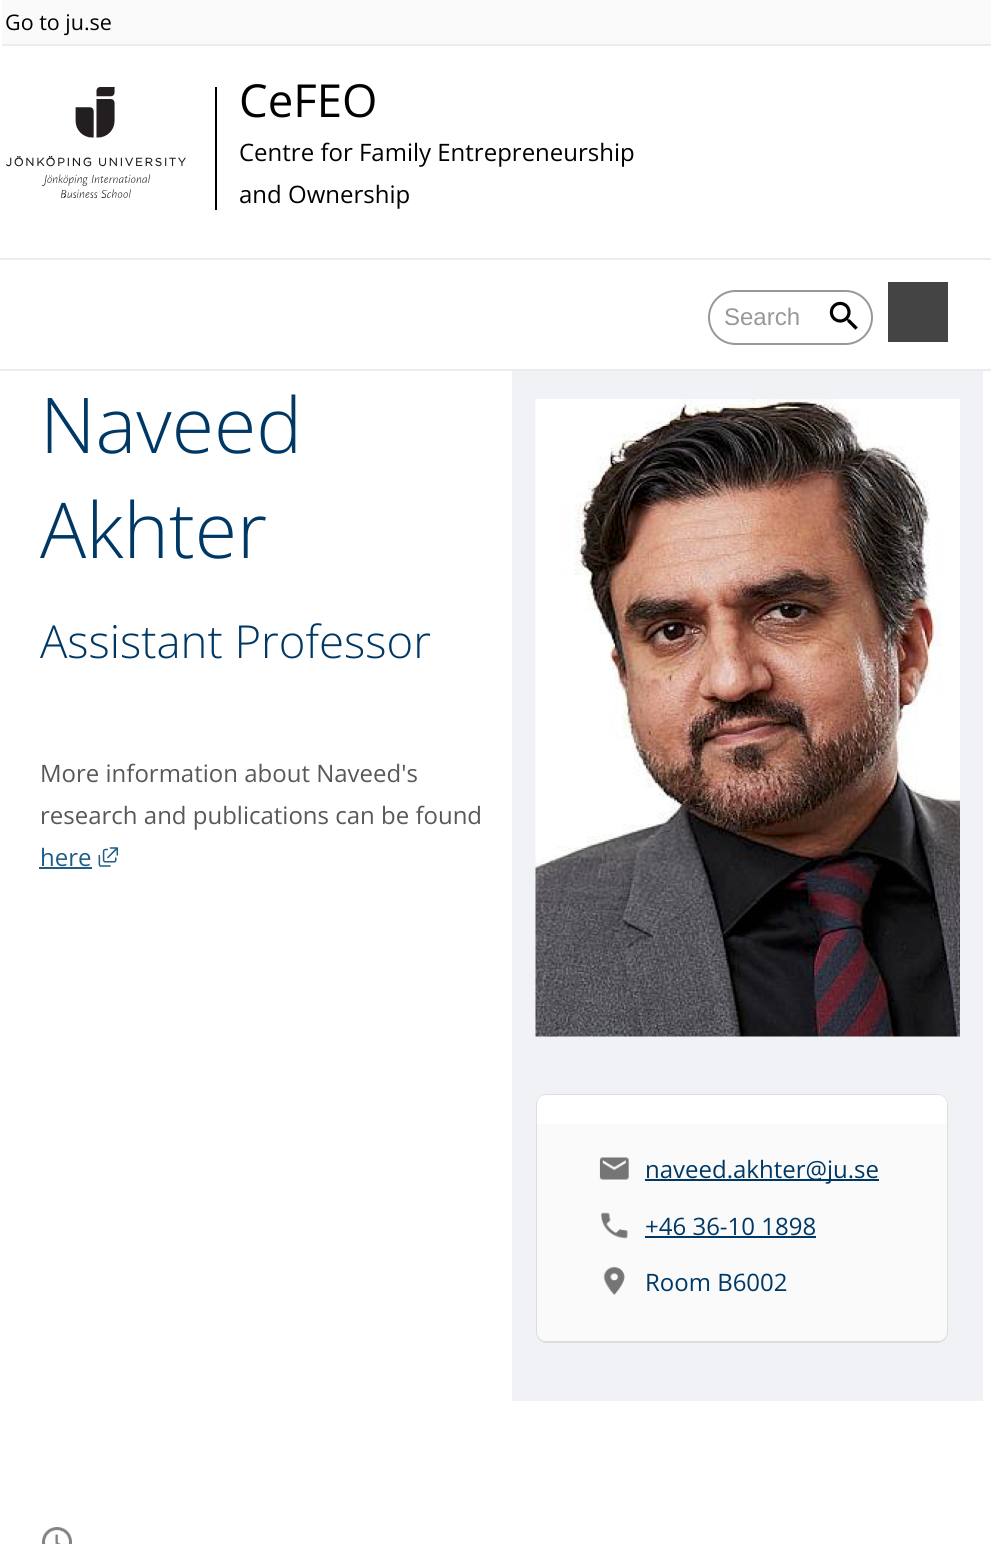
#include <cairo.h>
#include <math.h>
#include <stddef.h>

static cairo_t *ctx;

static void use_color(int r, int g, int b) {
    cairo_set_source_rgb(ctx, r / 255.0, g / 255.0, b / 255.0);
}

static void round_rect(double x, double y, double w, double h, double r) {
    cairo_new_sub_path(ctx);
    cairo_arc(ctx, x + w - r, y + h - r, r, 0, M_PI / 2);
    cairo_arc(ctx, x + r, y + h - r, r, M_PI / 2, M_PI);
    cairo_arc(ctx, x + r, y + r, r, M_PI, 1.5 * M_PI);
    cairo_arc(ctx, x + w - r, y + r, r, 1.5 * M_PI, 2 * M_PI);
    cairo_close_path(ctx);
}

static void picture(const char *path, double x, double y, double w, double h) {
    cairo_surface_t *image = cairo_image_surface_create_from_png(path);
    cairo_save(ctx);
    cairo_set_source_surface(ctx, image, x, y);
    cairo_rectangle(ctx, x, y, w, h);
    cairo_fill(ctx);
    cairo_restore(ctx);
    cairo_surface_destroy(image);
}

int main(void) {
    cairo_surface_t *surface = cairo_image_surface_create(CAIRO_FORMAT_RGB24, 991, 1544);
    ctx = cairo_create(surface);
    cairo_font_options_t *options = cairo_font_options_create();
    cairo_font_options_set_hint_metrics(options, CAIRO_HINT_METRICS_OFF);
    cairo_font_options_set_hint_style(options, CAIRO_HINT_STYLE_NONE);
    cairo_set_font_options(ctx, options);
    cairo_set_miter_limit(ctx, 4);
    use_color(255, 255, 255);
    cairo_paint(ctx);
    use_color(236, 236, 236);
    cairo_rectangle(ctx, 0, 258, 991, 2);
    cairo_fill(ctx);
    use_color(250, 250, 250);
    cairo_rectangle(ctx, 2, 0, 989, 44);
    cairo_fill(ctx);
    use_color(236, 236, 236);
    cairo_rectangle(ctx, 2, 44, 989, 2);
    cairo_fill(ctx);
    cairo_select_font_face(ctx, "Open Sans", CAIRO_FONT_SLANT_NORMAL, CAIRO_FONT_WEIGHT_NORMAL);
    cairo_set_font_size(ctx, 21.5);
    use_color(0, 0, 0);
    cairo_move_to(ctx, 5, 30);
    cairo_show_text(ctx, "Go to ju.se");
    cairo_rectangle(ctx, 215, 87, 2, 123);
    cairo_fill(ctx);
    picture("img1.png", 6, 87, 180, 111);
    cairo_set_font_size(ctx, 45.5);
    cairo_move_to(ctx, 239, 117);
    cairo_show_text(ctx, "CeFEO");
    cairo_set_font_size(ctx, 24);
    cairo_move_to(ctx, 239, 161);
    cairo_show_text(ctx, "Centre for Family Entrepreneurship");
    cairo_move_to(ctx, 239, 203);
    cairo_show_text(ctx, "and Ownership");
    use_color(236, 236, 236);
    cairo_rectangle(ctx, 0, 369, 991, 2);
    cairo_fill(ctx);
    round_rect(709, 291, 163, 53, 26.5);
    use_color(152, 152, 152);
    cairo_stroke(ctx);
    cairo_select_font_face(ctx, "Liberation Sans", CAIRO_FONT_SLANT_NORMAL, CAIRO_FONT_WEIGHT_NORMAL);
    cairo_move_to(ctx, 724, 325);
    cairo_show_text(ctx, "Search");
    picture("img2.png", 829, 301, 29, 29);
    use_color(68, 68, 68);
    cairo_rectangle(ctx, 888, 282, 60, 60);
    cairo_fill(ctx);
    cairo_select_font_face(ctx, "Open Sans Light", CAIRO_FONT_SLANT_NORMAL, CAIRO_FONT_WEIGHT_NORMAL);
    cairo_set_font_size(ctx, 77);
    use_color(0, 56, 101);
    cairo_move_to(ctx, 40, 453);
    cairo_show_text(ctx, "Naveed");
    cairo_move_to(ctx, 40, 558);
    cairo_show_text(ctx, "Akhter");
    use_color(240, 242, 246);
    cairo_rectangle(ctx, 512, 371, 471, 1030);
    cairo_fill(ctx);
    picture("img3.png", 535, 399, 425, 638);
    cairo_set_font_size(ctx, 45.5);
    use_color(0, 56, 101);
    cairo_move_to(ctx, 40, 658);
    cairo_show_text(ctx, "Assistant Professor");
    cairo_select_font_face(ctx, "Open Sans", CAIRO_FONT_SLANT_NORMAL, CAIRO_FONT_WEIGHT_NORMAL);
    cairo_set_font_size(ctx, 24);
    use_color(88, 88, 87);
    cairo_move_to(ctx, 40, 782);
    cairo_show_text(ctx, "More information about Naveed's");
    cairo_move_to(ctx, 40, 824);
    cairo_show_text(ctx, "research and publications can be found");
    use_color(31, 93, 134);
    cairo_move_to(ctx, 40, 866);
    cairo_show_text(ctx, "here");
    cairo_rectangle(ctx, 39, 867, 53, 2);
    cairo_fill(ctx);
    picture("img4.png", 98, 847, 20, 20);
    round_rect(537, 1095, 410, 247, 10);
    use_color(221, 221, 221);
    cairo_stroke(ctx);
    use_color(255, 255, 255);
    cairo_new_path(ctx);
    cairo_move_to(ctx, 546, 1095);
    cairo_line_to(ctx, 938, 1095);
    cairo_curve_to(ctx, 943, 1095, 947, 1099, 947, 1104);
    cairo_line_to(ctx, 947, 1124);
    cairo_line_to(ctx, 537, 1124);
    cairo_line_to(ctx, 537, 1104);
    cairo_curve_to(ctx, 537, 1099, 541, 1095, 546, 1095);
    cairo_close_path(ctx);
    cairo_fill(ctx);
    use_color(250, 250, 250);
    cairo_new_path(ctx);
    cairo_move_to(ctx, 537, 1124);
    cairo_line_to(ctx, 947, 1124);
    cairo_line_to(ctx, 947, 1332);
    cairo_curve_to(ctx, 947, 1337, 943, 1341, 938, 1341);
    cairo_line_to(ctx, 546, 1341);
    cairo_curve_to(ctx, 541, 1341, 537, 1337, 537, 1332);
    cairo_close_path(ctx);
    cairo_fill(ctx);
    picture("img5.png", 599, 1157, 30, 23);
    use_color(0, 56, 101);
    cairo_rectangle(ctx, 645, 1179, 234, 2);
    cairo_fill(ctx);
    cairo_move_to(ctx, 645, 1178);
    cairo_show_text(ctx, "naveed.akhter@ju.se");
    picture("img6.png", 600, 1212, 28, 27);
    cairo_move_to(ctx, 645, 1235);
    cairo_show_text(ctx, "+46 36-10 1898");
    cairo_rectangle(ctx, 645, 1236, 171, 2);
    cairo_fill(ctx);
    picture("img7.png", 603, 1267, 22, 28);
    cairo_move_to(ctx, 645, 1291);
    cairo_show_text(ctx, "Room B6002");
    picture("img8.png", 42, 1527, 30, 17);
    cairo_surface_write_to_png(surface, "result.png");
    cairo_font_options_destroy(options);
    cairo_destroy(ctx);
    cairo_surface_destroy(surface);
    return 0;
}
